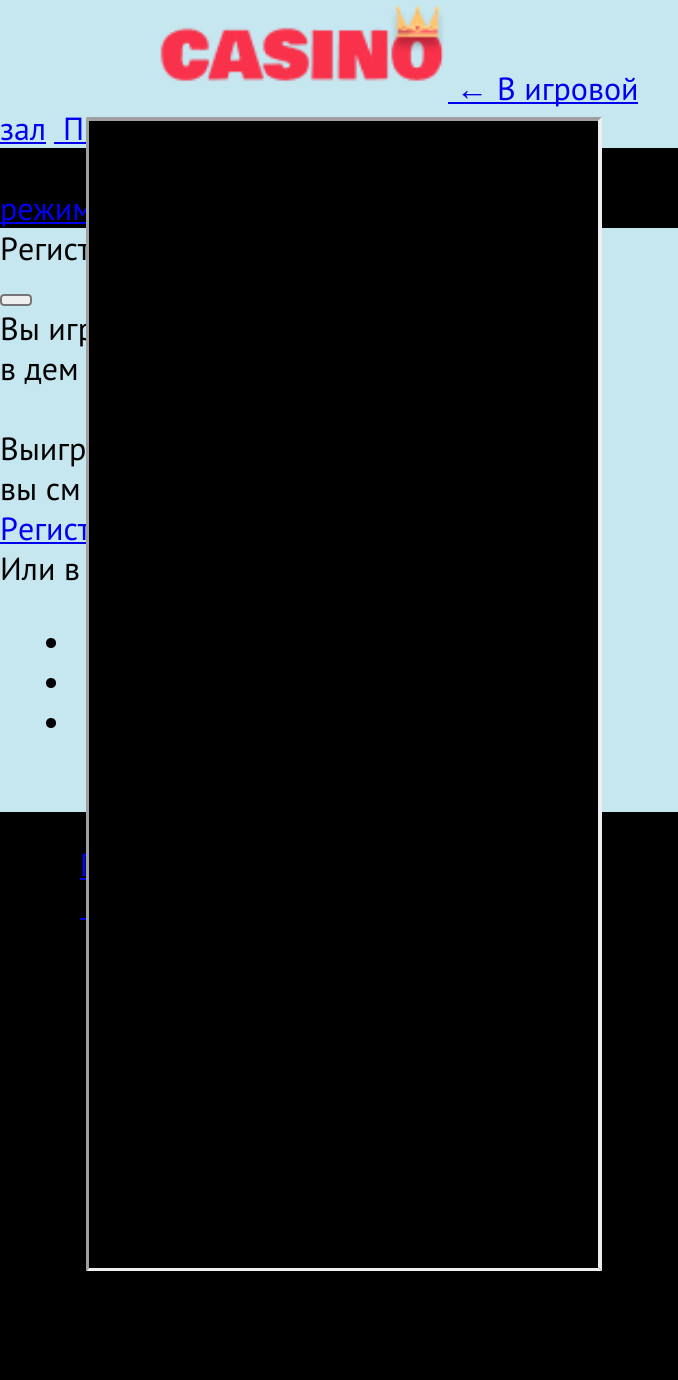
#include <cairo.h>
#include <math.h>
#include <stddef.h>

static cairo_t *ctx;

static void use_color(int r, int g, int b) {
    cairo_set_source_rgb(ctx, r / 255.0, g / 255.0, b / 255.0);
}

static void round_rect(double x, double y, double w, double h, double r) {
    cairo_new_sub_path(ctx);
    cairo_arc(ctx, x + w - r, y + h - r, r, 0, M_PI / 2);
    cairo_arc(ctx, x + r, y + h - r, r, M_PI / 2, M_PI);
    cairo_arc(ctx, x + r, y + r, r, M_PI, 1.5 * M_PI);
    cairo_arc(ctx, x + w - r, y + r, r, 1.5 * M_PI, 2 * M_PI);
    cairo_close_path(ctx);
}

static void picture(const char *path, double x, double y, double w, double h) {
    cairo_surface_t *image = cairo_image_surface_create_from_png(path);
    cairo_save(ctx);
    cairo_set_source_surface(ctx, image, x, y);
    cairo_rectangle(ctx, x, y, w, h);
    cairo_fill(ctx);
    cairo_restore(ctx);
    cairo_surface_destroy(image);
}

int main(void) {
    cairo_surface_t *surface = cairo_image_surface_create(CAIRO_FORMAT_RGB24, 678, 1380);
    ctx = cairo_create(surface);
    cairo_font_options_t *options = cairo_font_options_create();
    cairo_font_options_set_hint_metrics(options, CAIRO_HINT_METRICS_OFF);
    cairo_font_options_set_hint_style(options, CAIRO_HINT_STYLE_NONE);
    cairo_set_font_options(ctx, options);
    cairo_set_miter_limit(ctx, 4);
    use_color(0, 0, 0);
    cairo_paint(ctx);
    use_color(198, 231, 240);
    cairo_rectangle(ctx, 0, 0, 678, 148);
    cairo_fill(ctx);
    picture("img1.png", 160, 6, 284, 76);
    cairo_select_font_face(ctx, "Liberation Sans", CAIRO_FONT_SLANT_NORMAL, CAIRO_FONT_WEIGHT_NORMAL);
    cairo_set_font_size(ctx, 32);
    use_color(0, 0, 238);
    cairo_move_to(ctx, 456, 100);
    cairo_show_text(ctx, "←");
    cairo_rectangle(ctx, 448, 102, 190, 2);
    cairo_fill(ctx);
    cairo_select_font_face(ctx, "PT Sans", CAIRO_FONT_SLANT_NORMAL, CAIRO_FONT_WEIGHT_NORMAL);
    cairo_move_to(ctx, 497, 100);
    cairo_show_text(ctx, "В игровой");
    cairo_move_to(ctx, 0, 140);
    cairo_show_text(ctx, "зал");
    cairo_rectangle(ctx, 0, 142, 46, 2);
    cairo_fill(ctx);
    cairo_move_to(ctx, 63, 140);
    cairo_show_text(ctx, "П");
    cairo_rectangle(ctx, 54, 142, 32, 2);
    cairo_fill(ctx);
    cairo_rectangle(ctx, 0, 222, 92, 2);
    cairo_fill(ctx);
    cairo_move_to(ctx, 0, 220);
    cairo_show_text(ctx, "режим");
    use_color(159, 159, 159);
    cairo_new_path(ctx);
    cairo_move_to(ctx, 86, 117);
    cairo_line_to(ctx, 602, 117);
    cairo_line_to(ctx, 598, 121);
    cairo_line_to(ctx, 90, 121);
    cairo_close_path(ctx);
    cairo_fill(ctx);
    use_color(198, 231, 240);
    cairo_rectangle(ctx, 0, 228, 678, 584);
    cairo_fill(ctx);
    use_color(238, 238, 238);
    cairo_new_path(ctx);
    cairo_move_to(ctx, 602, 117);
    cairo_line_to(ctx, 602, 1271);
    cairo_line_to(ctx, 598, 1267);
    cairo_line_to(ctx, 598, 121);
    cairo_close_path(ctx);
    cairo_fill(ctx);
    cairo_new_path(ctx);
    cairo_move_to(ctx, 602, 1271);
    cairo_line_to(ctx, 86, 1271);
    cairo_line_to(ctx, 90, 1267);
    cairo_line_to(ctx, 598, 1267);
    cairo_close_path(ctx);
    cairo_fill(ctx);
    use_color(0, 0, 0);
    cairo_move_to(ctx, 0, 260);
    cairo_show_text(ctx, "Регист");
    cairo_move_to(ctx, 0, 340);
    cairo_show_text(ctx, "Вы игр");
    use_color(0, 0, 238);
    cairo_move_to(ctx, 0, 540);
    cairo_show_text(ctx, "Регист");
    cairo_move_to(ctx, 80, 876);
    cairo_show_text(ctx, "Г");
    use_color(159, 159, 159);
    cairo_new_path(ctx);
    cairo_move_to(ctx, 86, 1271);
    cairo_line_to(ctx, 86, 117);
    cairo_line_to(ctx, 90, 121);
    cairo_line_to(ctx, 90, 1267);
    cairo_close_path(ctx);
    cairo_fill(ctx);
    use_color(0, 0, 0);
    cairo_rectangle(ctx, 89, 121, 509, 1147);
    cairo_fill(ctx);
    use_color(239, 239, 239);
    round_rect(1, 295, 30, 10, 3);
    cairo_fill_preserve(ctx);
    use_color(118, 118, 118);
    cairo_stroke(ctx);
    use_color(0, 0, 0);
    cairo_move_to(ctx, 0, 380);
    cairo_show_text(ctx, "в дем");
    cairo_move_to(ctx, 0, 460);
    cairo_show_text(ctx, "Выигр");
    cairo_move_to(ctx, 0, 500);
    cairo_show_text(ctx, "вы см");
    use_color(0, 0, 238);
    cairo_rectangle(ctx, 0, 542, 86, 2);
    cairo_fill(ctx);
    use_color(0, 0, 0);
    cairo_move_to(ctx, 0, 580);
    cairo_show_text(ctx, "Или в");
    cairo_new_path(ctx);
    cairo_arc(ctx, 51, 643, 5, 0, 2 * M_PI);
    cairo_fill(ctx);
    cairo_arc(ctx, 51, 683, 5, 0, 2 * M_PI);
    cairo_fill(ctx);
    cairo_arc(ctx, 51, 723, 5, 0, 2 * M_PI);
    cairo_fill(ctx);
    use_color(0, 0, 238);
    cairo_rectangle(ctx, 80, 878, 6, 2);
    cairo_fill(ctx);
    cairo_rectangle(ctx, 80, 918, 6, 2);
    cairo_fill(ctx);
    cairo_surface_write_to_png(surface, "result.png");
    cairo_font_options_destroy(options);
    cairo_destroy(ctx);
    cairo_surface_destroy(surface);
    return 0;
}
